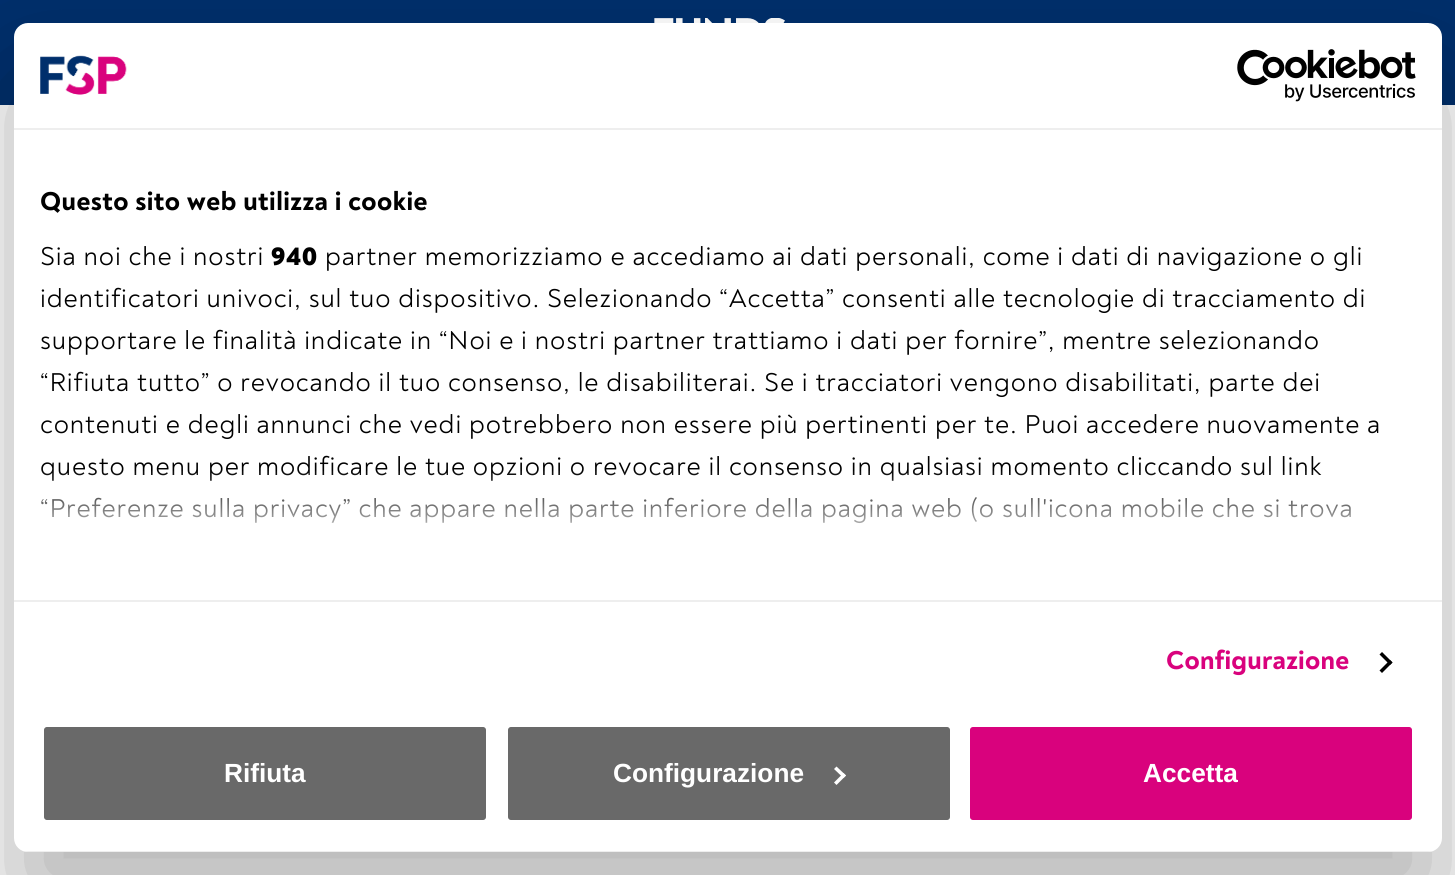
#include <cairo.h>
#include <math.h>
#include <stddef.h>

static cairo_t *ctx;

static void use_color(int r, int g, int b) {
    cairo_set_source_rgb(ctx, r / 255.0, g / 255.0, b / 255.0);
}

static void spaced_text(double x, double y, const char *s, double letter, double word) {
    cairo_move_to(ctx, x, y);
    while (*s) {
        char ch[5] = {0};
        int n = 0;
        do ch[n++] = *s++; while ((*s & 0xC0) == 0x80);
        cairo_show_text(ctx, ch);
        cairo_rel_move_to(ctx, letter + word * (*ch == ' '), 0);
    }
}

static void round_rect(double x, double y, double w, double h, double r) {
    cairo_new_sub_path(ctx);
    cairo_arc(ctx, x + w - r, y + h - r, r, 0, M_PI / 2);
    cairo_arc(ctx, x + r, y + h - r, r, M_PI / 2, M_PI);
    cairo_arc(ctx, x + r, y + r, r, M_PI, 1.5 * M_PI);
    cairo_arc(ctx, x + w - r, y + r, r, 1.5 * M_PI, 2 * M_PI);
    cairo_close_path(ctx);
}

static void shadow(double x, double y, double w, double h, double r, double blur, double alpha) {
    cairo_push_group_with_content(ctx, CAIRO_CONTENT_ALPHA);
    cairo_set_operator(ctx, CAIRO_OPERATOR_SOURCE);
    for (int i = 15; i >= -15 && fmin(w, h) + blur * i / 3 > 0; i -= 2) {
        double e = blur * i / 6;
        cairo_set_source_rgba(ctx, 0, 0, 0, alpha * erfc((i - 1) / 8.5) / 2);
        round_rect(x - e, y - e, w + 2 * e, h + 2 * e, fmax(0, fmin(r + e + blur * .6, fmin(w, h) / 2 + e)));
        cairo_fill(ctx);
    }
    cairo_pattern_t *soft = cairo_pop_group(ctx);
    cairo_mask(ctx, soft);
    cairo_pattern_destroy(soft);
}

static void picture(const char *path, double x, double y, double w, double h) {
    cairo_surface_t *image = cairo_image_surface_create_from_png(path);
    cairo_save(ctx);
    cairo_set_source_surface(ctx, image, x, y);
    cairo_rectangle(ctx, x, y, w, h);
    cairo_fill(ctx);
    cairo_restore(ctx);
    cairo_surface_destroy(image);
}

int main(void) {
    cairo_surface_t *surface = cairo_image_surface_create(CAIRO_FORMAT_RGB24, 1455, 875);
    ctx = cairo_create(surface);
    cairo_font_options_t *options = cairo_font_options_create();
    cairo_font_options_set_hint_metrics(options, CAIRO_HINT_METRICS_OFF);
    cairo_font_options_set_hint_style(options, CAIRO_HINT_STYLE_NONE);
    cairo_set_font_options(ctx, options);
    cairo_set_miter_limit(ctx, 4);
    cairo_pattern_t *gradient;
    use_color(255, 255, 255);
    cairo_paint(ctx);
    use_color(0, 47, 108);
    cairo_rectangle(ctx, 0, 0, 1455, 105);
    cairo_fill(ctx);
    picture("img1.png", 654, 18, 131, 5);
    use_color(0, 0, 0);
    shadow(14, 79, 1428, 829, 14, 59.5, 0.3);
    use_color(255, 255, 255);
    round_rect(14, 23, 1428, 829, 14);
    cairo_fill(ctx);
    use_color(238, 238, 238);
    cairo_rectangle(ctx, 14, 128, 1428, 2);
    cairo_fill(ctx);
    picture("img2.png", 40, 55, 87, 40);
    picture("img3.png", 1237, 49, 179, 53);
    cairo_rectangle(ctx, 14, 600, 1428, 2);
    cairo_fill(ctx);
    cairo_select_font_face(ctx, "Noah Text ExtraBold", CAIRO_FONT_SLANT_NORMAL, CAIRO_FONT_WEIGHT_NORMAL);
    cairo_set_font_size(ctx, 26.25);
    use_color(0, 0, 0);
    spaced_text(40, 210, "Questo sito web utilizza i cookie", 0.45, 0);
    cairo_select_font_face(ctx, "Noah Text", CAIRO_FONT_SLANT_NORMAL, CAIRO_FONT_WEIGHT_NORMAL);
    spaced_text(40, 265, "Sia noi che i nostri", 0.88, 0);
    cairo_select_font_face(ctx, "Noah Text Black", CAIRO_FONT_SLANT_NORMAL, CAIRO_FONT_WEIGHT_NORMAL);
    spaced_text(271, 265, "940", 0.88, 0);
    cairo_select_font_face(ctx, "Noah Text", CAIRO_FONT_SLANT_NORMAL, CAIRO_FONT_WEIGHT_NORMAL);
    spaced_text(325, 265, "partner memorizziamo e accediamo ai dati personali, come i dati di navigazione o gli", 0.88, 0);
    spaced_text(40, 307, "identificatori univoci, sul tuo dispositivo. Selezionando “Accetta” consenti alle tecnologie di tracciamento di", 0.88, 0);
    spaced_text(40, 349, "supportare le finalità indicate in “Noi e i nostri partner trattiamo i dati per fornire”, mentre selezionando", 0.88, 0);
    spaced_text(40, 391, "“Rifiuta tutto” o revocando il tuo consenso, le disabiliterai. Se i tracciatori vengono disabilitati, parte dei", 0.88, 0);
    spaced_text(40, 433, "contenuti e degli annunci che vedi potrebbero non essere più pertinenti per te. Puoi accedere nuovamente a", 0.88, 0);
    spaced_text(40, 475, "questo menu per modificare le tue opzioni o revocare il consenso in qualsiasi momento cliccando sul link", 0.88, 0);
    spaced_text(40, 517, "“Preferenze sulla privacy” che appare nella parte inferiore della pagina web (o sull'icona mobile che si trova", 0.88, 0);
    gradient = cairo_pattern_create_linear(717, 600, 717, 469);
    cairo_pattern_add_color_stop_rgba(gradient, 0, 1, 1, 1, 1);
    cairo_pattern_add_color_stop_rgba(gradient, 0.5, 1, 1, 1, 0.8);
    cairo_pattern_add_color_stop_rgba(gradient, 1, 1, 1, 1, 0);
    cairo_set_source(ctx, gradient);
    cairo_pattern_destroy(gradient);
    cairo_rectangle(ctx, 41, 471, 1310, 52);
    cairo_fill(ctx);
    cairo_select_font_face(ctx, "Noah Text ExtraBold", CAIRO_FONT_SLANT_NORMAL, CAIRO_FONT_WEIGHT_NORMAL);
    use_color(217, 2, 125);
    spaced_text(1166, 669, "Configurazione", 0.25, 0);
    use_color(0, 0, 0);
    cairo_new_path(ctx);
    cairo_move_to(ctx, 1382, 652);
    cairo_line_to(ctx, 1392.5, 662.5);
    cairo_line_to(ctx, 1390, 665);
    cairo_line_to(ctx, 1379.5, 654.5);
    cairo_close_path(ctx);
    cairo_fill(ctx);
    cairo_new_path(ctx);
    cairo_move_to(ctx, 1390, 660);
    cairo_line_to(ctx, 1392.5, 662.5);
    cairo_line_to(ctx, 1382, 673);
    cairo_line_to(ctx, 1379.5, 670.5);
    cairo_close_path(ctx);
    cairo_fill(ctx);
    cairo_save(ctx);
    round_rect(14, 23, 1428, 829, 14);
    cairo_clip(ctx);
    use_color(238, 238, 238);
    cairo_rectangle(ctx, 23, 851, 1410, 1);
    cairo_fill(ctx);
    cairo_restore(ctx);
    use_color(105, 105, 105);
    round_rect(42, 725, 446, 97, 5);
    cairo_fill_preserve(ctx);
    use_color(255, 255, 255);
    cairo_set_line_width(ctx, 4);
    cairo_stroke(ctx);
    cairo_select_font_face(ctx, "Liberation Sans", CAIRO_FONT_SLANT_NORMAL, CAIRO_FONT_WEIGHT_BOLD);
    cairo_move_to(ctx, 224, 782);
    cairo_show_text(ctx, "Rifiuta");
    use_color(105, 105, 105);
    round_rect(506, 725, 446, 97, 5);
    cairo_fill_preserve(ctx);
    use_color(255, 255, 255);
    cairo_stroke(ctx);
    cairo_move_to(ctx, 613, 782);
    cairo_show_text(ctx, "Configurazione");
    cairo_new_path(ctx);
    cairo_move_to(ctx, 836.5, 766.5);
    cairo_line_to(ctx, 846, 775.5);
    cairo_line_to(ctx, 843.5, 778);
    cairo_line_to(ctx, 834, 769);
    cairo_close_path(ctx);
    cairo_fill(ctx);
    cairo_new_path(ctx);
    cairo_move_to(ctx, 843.5, 773);
    cairo_line_to(ctx, 846, 775.5);
    cairo_line_to(ctx, 836.5, 785);
    cairo_line_to(ctx, 834, 782.5);
    cairo_close_path(ctx);
    cairo_fill(ctx);
    use_color(217, 2, 125);
    round_rect(968, 725, 446, 97, 5);
    cairo_fill_preserve(ctx);
    use_color(255, 255, 255);
    cairo_stroke(ctx);
    cairo_move_to(ctx, 1143, 782);
    cairo_show_text(ctx, "Accetta");
    cairo_surface_write_to_png(surface, "result.png");
    cairo_font_options_destroy(options);
    cairo_destroy(ctx);
    cairo_surface_destroy(surface);
    return 0;
}
